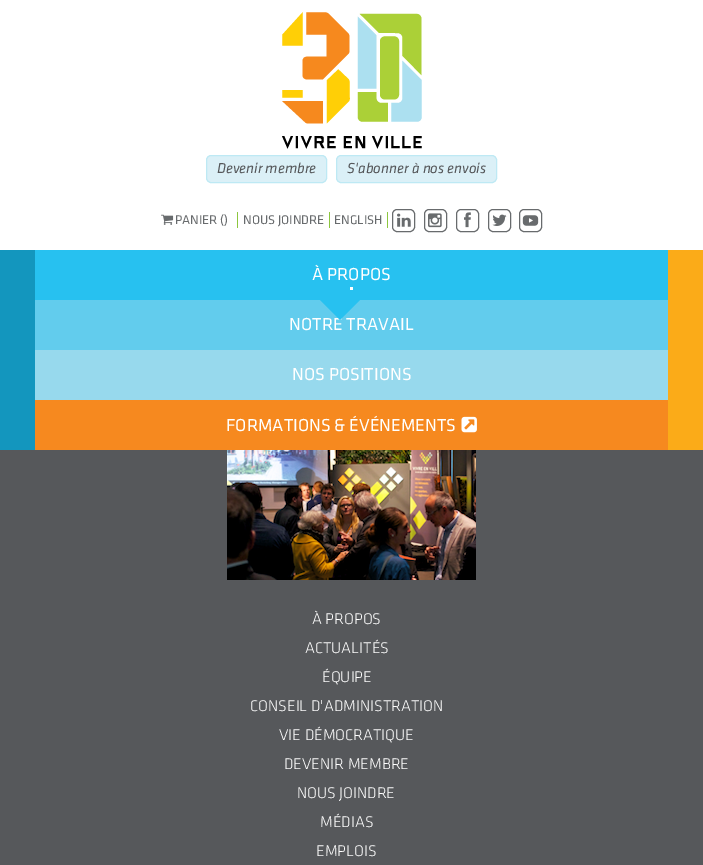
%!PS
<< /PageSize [703 865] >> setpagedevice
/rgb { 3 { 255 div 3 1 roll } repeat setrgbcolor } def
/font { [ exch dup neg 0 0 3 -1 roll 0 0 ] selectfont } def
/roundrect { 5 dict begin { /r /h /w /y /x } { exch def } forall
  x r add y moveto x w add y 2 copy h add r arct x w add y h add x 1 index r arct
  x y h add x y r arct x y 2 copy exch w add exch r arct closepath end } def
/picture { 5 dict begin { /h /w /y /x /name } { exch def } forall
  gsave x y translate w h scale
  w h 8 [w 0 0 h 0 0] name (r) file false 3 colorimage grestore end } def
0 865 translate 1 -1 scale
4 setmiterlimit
255 255 255 rgb
0 0 703 865 rectfill
(img/1.rgb) 282 12 140 137 picture
219 240 247 rgb
206.5 155.5 120 27 4.5 roundrect gsave fill grestore
190 233 244 rgb
stroke
219 240 247 rgb
336.5 155.5 160 27 4.5 roundrect gsave fill grestore
190 233 244 rgb
stroke
141 198 63 rgb
237 212 1 16 rectfill
(img/2.rgb) 161 214 13 11 picture
329 212 1 16 rectfill
387 212 1 16 rectfill
104 107 109 rgb
392.5 209.5 22 22 4.5 roundrect stroke
(img/3.rgb) 397 213 14 14 picture
424.5 209.5 22 22 4.5 roundrect stroke
(img/4.rgb) 428 213 14 15 picture
456.5 209.5 22 22 4.5 roundrect stroke
(img/5.rgb) 464 212 7 16 picture
488.5 209.5 22 22 4.5 roundrect stroke
(img/6.rgb) 492 214 15 12 picture
(img/7.rgb) 522 215 17 11 picture
519.5 209.5 22 22 4.5 roundrect stroke
gsave 0 250 moveto 703 250 lineto 703 450 lineto 0 450 lineto closepath clip newpath
<< /ShadingType 2 /ColorSpace /DeviceRGB /Coords [0 350 703 350] /Extend [true true] /Function << /FunctionType 3 /Domain [0 1] /Functions [<< /FunctionType 2 /Domain [0 1] /C0 [0.075 0.588 0.745] /C1 [0.075 0.588 0.745] /N 1 >> << /FunctionType 2 /Domain [0 1] /C0 [0.075 0.588 0.745] /C1 [0.984 0.671 0.094] /N 1 >> << /FunctionType 2 /Domain [0 1] /C0 [0.984 0.671 0.094] /C1 [0.984 0.671 0.094] /N 1 >>] /Bounds [0.5 0.53] /Encode [0 1 0 1 0 1] >> >> shfill grestore
[
  [35 250 633 50 39 193 240]
  [350 287 3 3 255 255 255]
  [0 450 703 415 86 88 91]
] { aload pop rgb rectfill } forall
(img/8.rgb) 227 450 249 130 picture
[
  [35 300 633 50 98 204 237]
  [35 350 633 50 151 217 237]
  [35 400 633 50 246 137 31]
] { aload pop rgb rectfill } forall
(img/9.rgb) 461 416 16 17 picture
/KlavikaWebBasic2-Regular 15 font
86 88 91 rgb
217 173 moveto (Devenir membre) show
347 173 moveto (S'abonner à nos envois) show
/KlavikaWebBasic-Regular 13 font
104 107 109 rgb
[
  [(PANIER \(\)) 175 224]
  [(NOUS JOINDRE) 243 224]
  [(ENGLISH) 334 224]
] { aload pop moveto show } forall
/KlavikaWebBasic-Regular 18 font
255 255 255 rgb
312 280 moveto (À PROPOS) show
/KlavikaWebBasic-Light 16 font
[
  [(À PROPOS) 312 624]
  [(ACTUALITÉS) 305 653]
  [(ÉQUIPE) 322 682]
  [(CONSEIL D'ADMINISTRATION) 250 711]
  [(VIE DÉMOCRATIQUE) 279 740]
  [(DEVENIR MEMBRE) 284 769]
  [(NOUS JOINDRE) 297 798]
  [(MÉDIAS) 320 827]
  [(EMPLOIS) 316 856]
] { aload pop moveto show } forall
/KlavikaWebBasic-Regular 18 font
289 330 moveto (NOTRE TRAVAIL) show
39 193 240 rgb
320 300 moveto 360 300 lineto 340 320 lineto closepath fill
255 255 255 rgb
292 380 moveto (NOS POSITIONS) show
226 431 moveto (FORMATIONS & ÉVÉNEMENTS) show
showpage
